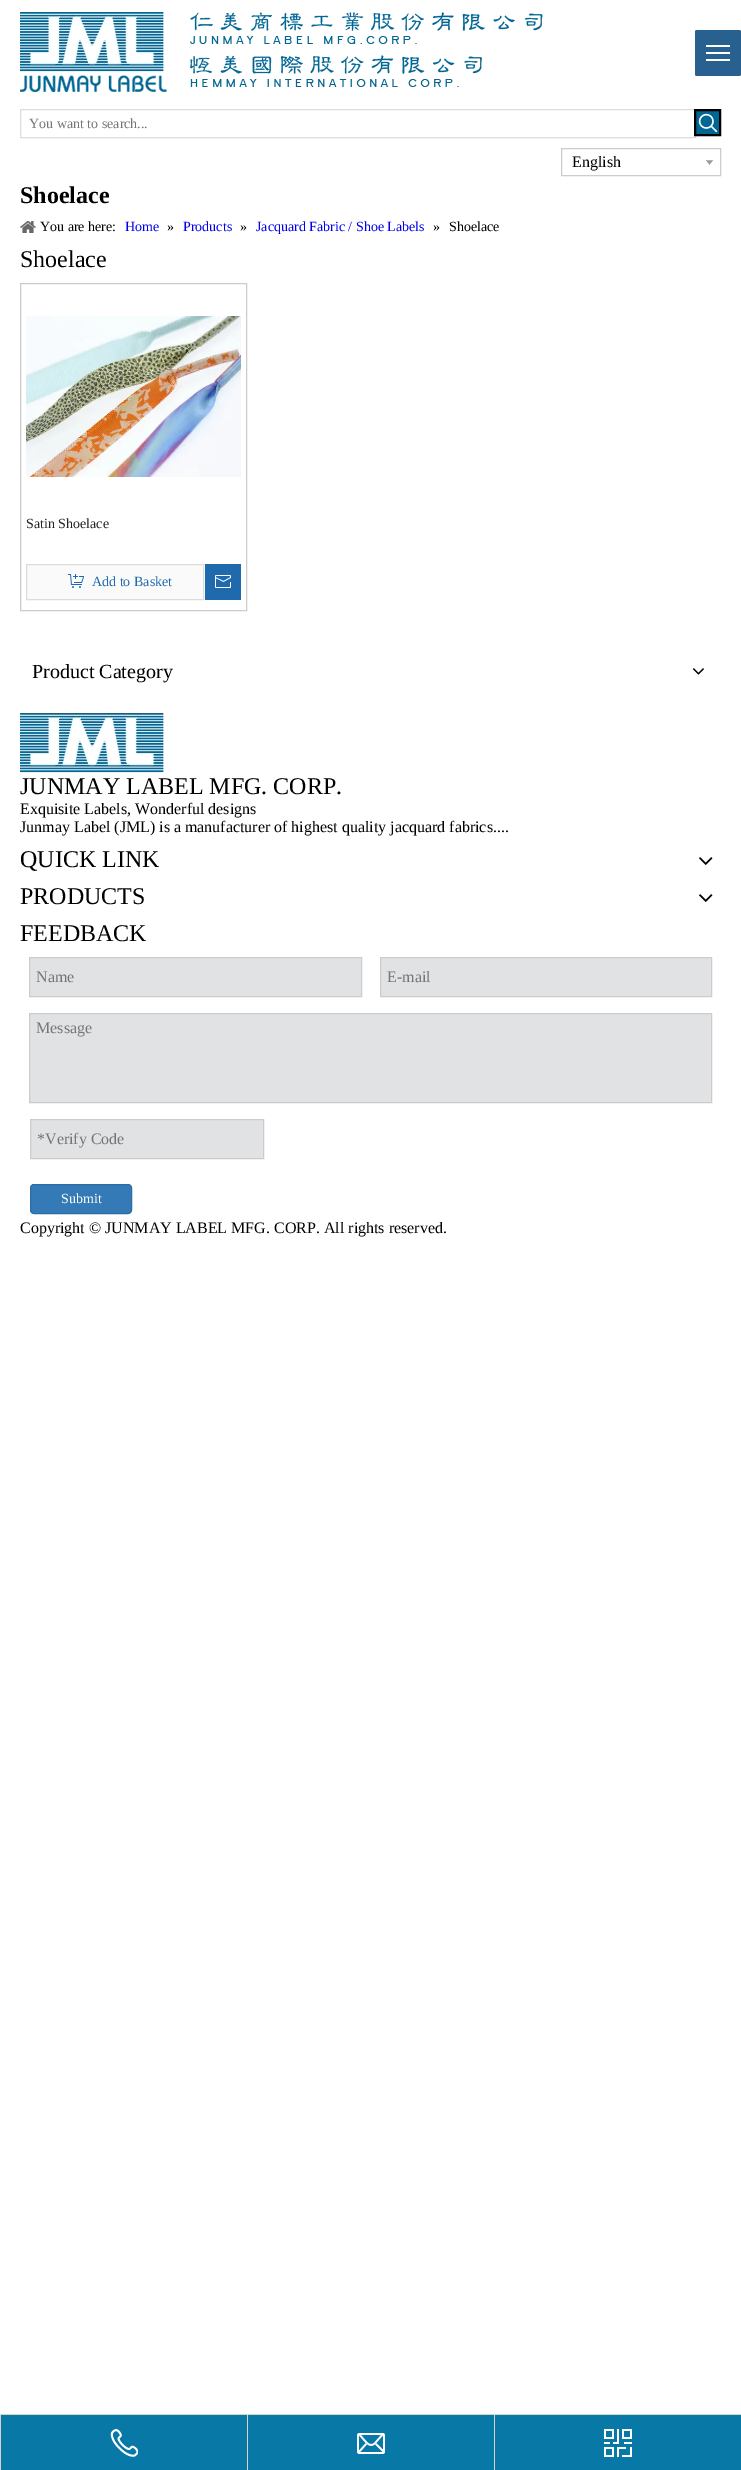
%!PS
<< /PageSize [741 2470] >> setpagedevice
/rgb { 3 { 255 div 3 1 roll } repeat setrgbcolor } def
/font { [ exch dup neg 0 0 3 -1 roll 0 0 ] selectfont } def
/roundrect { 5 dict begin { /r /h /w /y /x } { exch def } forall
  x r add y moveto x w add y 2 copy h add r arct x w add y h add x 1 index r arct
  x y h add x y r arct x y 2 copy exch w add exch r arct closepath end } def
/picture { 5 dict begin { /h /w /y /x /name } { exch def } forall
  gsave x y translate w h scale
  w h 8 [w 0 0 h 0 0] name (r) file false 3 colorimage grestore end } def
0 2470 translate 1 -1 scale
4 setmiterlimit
255 255 255 rgb
0 0 741 2470 rectfill
40 96 144 rgb
695 30 46 46 2 roundrect fill
[
  [706 45 24 2 255 255 255]
  [706 52 24 2 255 255 255]
  [706 59 24 2 255 255 255]
] { aload pop rgb rectfill } forall
(img/1.rgb) 20 12 523 80 picture
221 221 221 rgb
20.5 109.5 675 28 rectstroke
0 103 148 rgb
695 110 moveto 720 110 lineto 720 135 lineto 695 135 lineto closepath gsave fill grestore
0 0 0 rgb
2 setlinewidth
stroke
(img/2.rgb) 698 113 20 20 picture
204 204 204 rgb
1 setlinewidth
561.5 148.5 159 27 rectstroke
(img/3.rgb) 706 160 7 5 picture
(img/4.rgb) 20 221 16 12 picture
20.5 283.5 226 327 rectstroke
(img/5.rgb) 26 316 215 161 picture
250 250 250 rgb
26.5 564.5 moveto 203.5 564.5 lineto 203.5 599.5 lineto 26.5 599.5 lineto closepath gsave fill grestore
220 220 220 rgb
stroke
(img/6.rgb) 68 574 16 14 picture
31 105 173 rgb
205 564 36 36 rectfill
(img/7.rgb) 215 575 16 13 picture
(img/8.rgb) 692 668 12 7 picture
(img/9.rgb) 20 713 144 60 picture
[
  [0 2414 741 1 211 211 211]
  [0 2415 1 55 211 211 211]
  [1 2415 246 55 8 121 167]
] { aload pop rgb rectfill } forall
(img/10.rgb) 110 2429 28 28 picture
211 211 211 rgb
247 2415 1 55 rectfill
8 121 167 rgb
248 2415 246 55 rectfill
(img/11.rgb) 357 2433 28 21 picture
211 211 211 rgb
494 2415 1 55 rectfill
8 121 167 rgb
495 2415 246 55 rectfill
(img/12.rgb) 604 2429 28 28 picture
(img/13.rgb) 699 857 14 8 picture
(img/13.rgb) 699 894 14 8 picture
225 226 228 rgb
29.5 957.5 moveto 361.5 957.5 lineto 361.5 996.5 lineto 29.5 996.5 lineto closepath gsave fill grestore
204 204 204 rgb
stroke
225 226 228 rgb
380.5 957.5 moveto 711.5 957.5 lineto 711.5 996.5 lineto 380.5 996.5 lineto closepath gsave fill grestore
204 204 204 rgb
stroke
225 226 228 rgb
29.5 1013.5 moveto 711.5 1013.5 lineto 711.5 1102.5 lineto 29.5 1102.5 lineto closepath gsave fill grestore
204 204 204 rgb
stroke
225 226 228 rgb
30.5 1119.5 moveto 263.5 1119.5 lineto 263.5 1158.5 lineto 30.5 1158.5 lineto closepath gsave fill grestore
204 204 204 rgb
stroke
51 122 183 rgb
30.5 1184.5 101 29 3.5 roundrect gsave fill grestore
46 109 164 rgb
stroke
/LiberationSerif-Regular 14 font
117 117 117 rgb
29 128 moveto (You want to search...) show
/LiberationSerif-Regular 16 font
0 0 0 rgb
572 167 moveto (English) show
/LiberationSerif-Bold 24 font
20 203 moveto (Shoelace) show
/LiberationSerif-Regular 14 font
40 231 moveto (You are here:) show
0 0 238 rgb
125 231 moveto (Home) show
0 0 0 rgb
167 231 moveto (») show
0 0 238 rgb
183 231 moveto (Products) show
0 0 0 rgb
240 231 moveto (») show
0 0 238 rgb
256 231 moveto (Jacquard Fabric / Shoe Labels) show
0 0 0 rgb
433 231 moveto (») show
449 231 moveto (Shoelace) show
/LiberationSerif-Regular 24 font
20 267 moveto (Shoelace) show
/LiberationSerif-Regular 14 font
34 34 34 rgb
26 528 moveto (Satin Shoelace) show
31 105 173 rgb
92 586 moveto (Add to Basket) show
/LiberationSerif-Regular 20 font
0 0 0 rgb
32 678 moveto (Product Category) show
/LiberationSerif-Regular 24 font
20 794 moveto (JUNMAY LABEL MFG. CORP.) show
/LiberationSerif-Regular 16 font
20 814 moveto (Exquisite Labels, Wonderful designs) show
20 832 moveto (Junmay Label \(JML\) is a manufacturer of highest quality jacquard fabrics....) show
/LiberationSerif-Regular 24 font
[
  [(QUICK LINK) 20 867]
  [(PRODUCTS) 20 904]
  [(FEEDBACK) 20 941]
] { aload pop moveto show } forall
/LiberationSerif-Regular 16 font
117 117 117 rgb
[
  [(Name) 36 982]
  [(E-mail) 387 982]
  [(Message) 36 1033]
  [(*Verify Code) 37 1144]
] { aload pop moveto show } forall
/LiberationSerif-Regular 14 font
255 255 255 rgb
61 1203 moveto (Submit) show
/LiberationSerif-Regular 16 font
0 0 0 rgb
20 1233 moveto (Copyright © JUNMAY LABEL MFG. CORP. All rights reserved.) show
showpage
